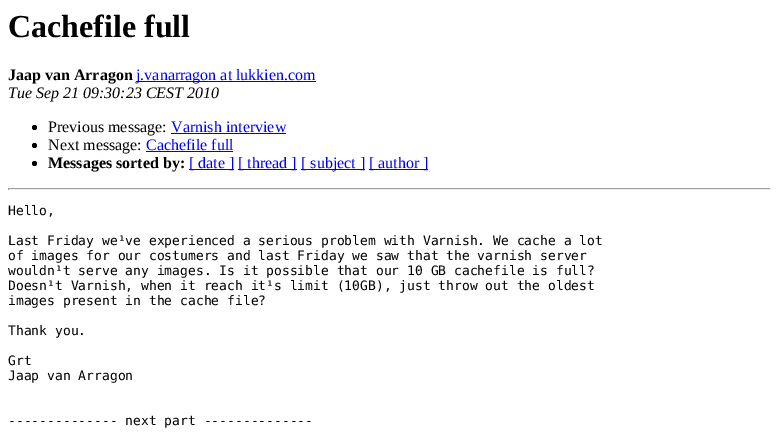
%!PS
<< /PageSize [779 436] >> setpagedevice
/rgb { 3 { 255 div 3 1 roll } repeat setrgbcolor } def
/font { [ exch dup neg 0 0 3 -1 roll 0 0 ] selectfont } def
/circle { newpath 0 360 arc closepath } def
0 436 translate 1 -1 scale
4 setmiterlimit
255 255 255 rgb
0 0 779 436 rectfill
0 0 238 rgb
136 81 180 1 rectfill
0 0 0 rgb
34.5 127.5 2.5 circle fill
0 0 238 rgb
171 133 115 1 rectfill
0 0 0 rgb
34.5 145.5 2.5 circle fill
0 0 238 rgb
146 151 87 1 rectfill
0 0 0 rgb
34.5 163.5 2.5 circle fill
[
  [189 169 45 1 0 0 238]
  [238 169 59 1 0 0 238]
  [301 169 64 1 0 0 238]
  [369 169 59 1 0 0 238]
  [8 188 763 1 159 159 159]
  [770 188 1 2 238 238 238]
  [8 189 763 1 238 238 238]
  [8 188 1 2 159 159 159]
] { aload pop rgb rectfill } forall
/LiberationSerif-Bold 32 font
0 0 0 rgb
8 37 moveto (Cachefile full) show
/LiberationSerif-Bold 16 font
8 80 moveto (Jaap van Arragon) show
/LiberationSerif-Regular 16 font
0 0 238 rgb
136 80 moveto (j.vanarragon at lukkien.com) show
/LiberationSerif-Italic 16 font
0 0 0 rgb
8 98 moveto (Tue Sep 21 09:30:23 CEST 2010) show
/LiberationSerif-Regular 16 font
48 132 moveto (Previous message:) show
0 0 238 rgb
171 132 moveto (Varnish interview) show
0 0 0 rgb
48 150 moveto (Next message:) show
0 0 238 rgb
146 150 moveto (Cachefile full) show
/LiberationSerif-Bold 16 font
0 0 0 rgb
48 168 moveto (Messages sorted by:) show
/LiberationSerif-Regular 16 font
0 0 238 rgb
[
  [([ date ]) 189 168]
  [([ thread ]) 238 168]
  [([ subject ]) 301 168]
  [([ author ]) 369 168]
] { aload pop moveto show } forall
/DejaVuSansMono-Regular 13 font
0 0 0 rgb
[
  [(Hello,) 8 215]
  [(Last Friday we¹ve experienced a serious problem with Varnish. We cache a lot) 8 245]
  [(of images for our costumers and last Friday we saw that the varnish server) 8 260]
  [(wouldn¹t serve any images. Is it possible that our 10 GB cachefile is full?) 8 275]
  [(Doesn¹t Varnish, when it reach it¹s limit \(10GB\), just throw out the oldest) 8 290]
  [(images present in the cache file?) 8 305]
  [(Thank you.) 8 335]
  [(Grt) 8 365]
  [(Jaap van Arragon) 8 380]
  [(-------------- next part --------------) 8 425]
] { aload pop moveto show } forall
showpage
